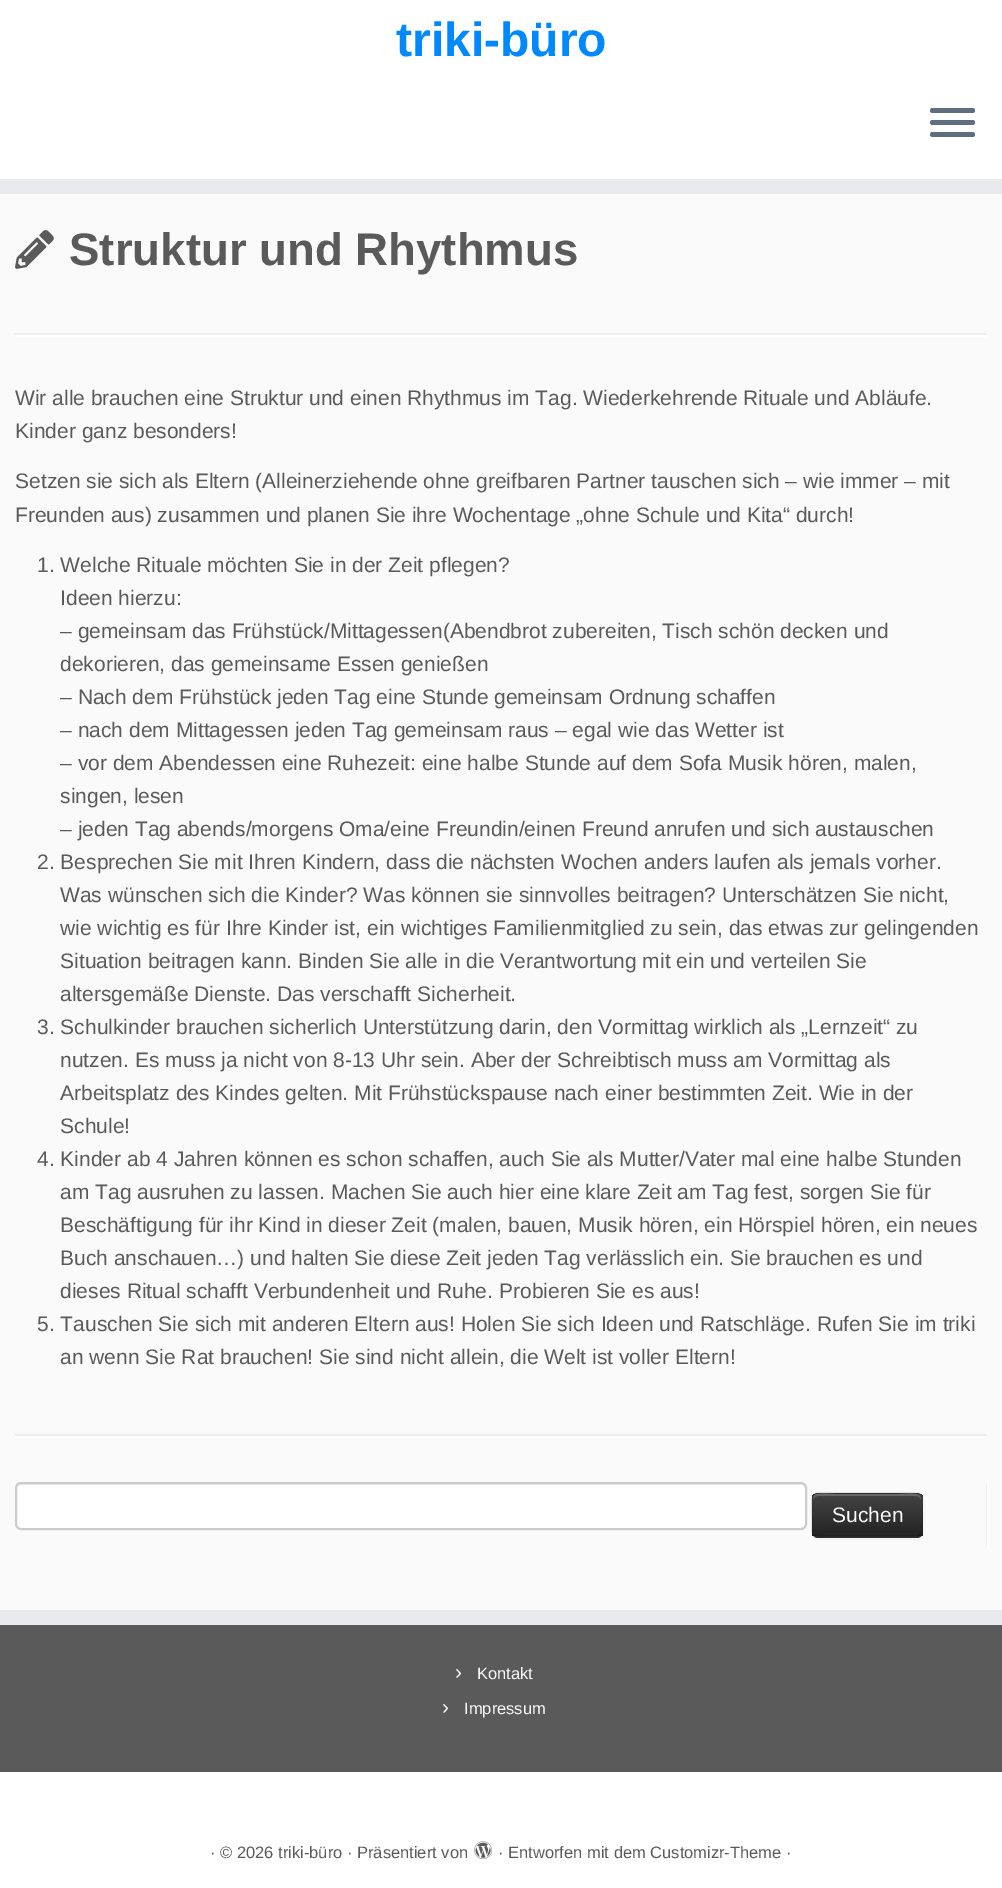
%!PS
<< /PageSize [1002 1888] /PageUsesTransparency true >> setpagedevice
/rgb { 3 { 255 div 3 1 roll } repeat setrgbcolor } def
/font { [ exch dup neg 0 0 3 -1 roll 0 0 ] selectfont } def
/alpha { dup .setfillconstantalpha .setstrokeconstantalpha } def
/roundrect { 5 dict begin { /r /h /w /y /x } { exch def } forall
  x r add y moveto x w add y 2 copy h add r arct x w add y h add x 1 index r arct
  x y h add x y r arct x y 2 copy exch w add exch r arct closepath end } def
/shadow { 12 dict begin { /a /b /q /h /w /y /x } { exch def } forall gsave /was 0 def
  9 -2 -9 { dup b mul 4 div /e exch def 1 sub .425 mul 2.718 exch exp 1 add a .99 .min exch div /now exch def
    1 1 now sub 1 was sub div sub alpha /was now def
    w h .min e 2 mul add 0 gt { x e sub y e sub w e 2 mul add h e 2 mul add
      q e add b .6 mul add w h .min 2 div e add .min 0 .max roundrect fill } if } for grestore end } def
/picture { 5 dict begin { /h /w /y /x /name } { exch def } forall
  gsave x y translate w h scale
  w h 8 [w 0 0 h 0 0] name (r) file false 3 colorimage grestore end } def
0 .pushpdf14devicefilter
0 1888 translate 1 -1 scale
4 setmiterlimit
250 250 250 rgb
0 0 1002 1888 rectfill
255 255 255 rgb
0 0 1002 179 rectfill
233 234 238 rgb
0 179 1002 15 rectfill
95 111 129 rgb
930 108 45 5 2.5 roundrect fill
930 120 45 5 2.5 roundrect fill
930 132 45 5 2.5 roundrect fill
(img/1.rgb) 15 230 39 39 picture
[
  [15 333 972 2 238 238 238]
  [15 335 972 2 255 255 255]
  [15 1434 972 2 238 238 238]
  [15 1436 972 2 255 255 255]
  [986 1482 1 65 238 238 238]
] { aload pop rgb rectfill } forall
255 255 255 rgb
15 1482 792 48 6 roundrect fill
236 236 236 rgb
21 1485 moveto 801 1485 lineto 803 1485 806 1487 806 1490 curveto 806 1489 lineto 806 1486 804 1484 801 1484 curveto 22 1484 lineto 20 1484 19 1485 18 1486 curveto closepath fill
204 204 204 rgb
2 setlinewidth
16 1483 790 46 5 roundrect stroke
0 0 0 rgb
812 1494 111 45 6 1.5 0.05 shadow
54 54 54 rgb
812 1493 111 45 6 roundrect fill
gsave
812 1493 111 45 6 roundrect clip newpath
gsave 812 1494 moveto 923 1494 lineto 923 1536 lineto 812 1536 lineto closepath clip newpath
<< /ShadingType 2 /ColorSpace /DeviceRGB /Coords [867 1494 867 1536] /Extend [true true] /Function << /FunctionType 2 /Domain [0 1] /C0 [0.267 0.267 0.267] /C1 [0.133 0.133 0.133] /N 1 >> >> shfill grestore
grestore
0.2 alpha
255 255 255 rgb
818 1496 moveto 916 1496 lineto 919 1496 921 1498 921 1500 curveto 921 1490 905 1494 900 1494 curveto 834 1494 lineto 829 1494 813 1490 813 1500 curveto 813 1498 815 1496 818 1496 curveto closepath fill
0.25 alpha
0 0 0 rgb
1.5 setlinewidth
920 1535 moveto 917 1536.5 lineto 817 1536.5 lineto 814 1535 lineto stroke
0.1 alpha
814 1535 moveto 811.5 1533 812 1529 812 1526 curveto 812 1515 lineto 812 1490.5 808.5 1493 834 1493 curveto 900 1493 lineto 925.5 1493 922 1490.5 922 1515 curveto 922 1526 lineto 922 1529 922.5 1533 920 1535 curveto stroke
1 alpha
[
  [987 1482 2 65 255 255 255]
  [0 1625 1002 147 90 90 90]
  [0 1610 1002 15 233 234 238]
  [0 1772 1002 116 255 255 255]
] { aload pop rgb rectfill } forall
(img/2.rgb) 474 1841 18 18 picture
/LiberationSans-Bold 48 font
0 136 255 rgb
396 56 moveto (triki-büro) show
/LiberationSans-Bold 45.6 font
90 90 90 rgb
69 265 moveto (Struktur und Rhythmus) show
/LiberationSans-Regular 21 font
[
  [(Wir alle brauchen eine Struktur und einen Rhythmus im Tag. Wiederkehrende Rituale und Abläufe.) 15 405]
  [(Kinder ganz besonders!) 15 438]
  [(Setzen sie sich als Eltern \(Alleinerziehende ohne greifbaren Partner tauschen sich – wie immer – mit) 15 488]
  [(Freunden aus\) zusammen und planen Sie ihre Wochentage „ohne Schule und Kita“ durch!) 15 522]
  [(1. Welche Rituale möchten Sie in der Zeit pflegen?) 37 572]
  [(Ideen hierzu:) 60 605]
  [(– gemeinsam das Frühstück/Mittagessen\(Abendbrot zubereiten, Tisch schön decken und) 60 638]
  [(dekorieren, das gemeinsame Essen genießen) 60 671]
  [(– Nach dem Frühstück jeden Tag eine Stunde gemeinsam Ordnung schaffen) 60 704]
  [(– nach dem Mittagessen jeden Tag gemeinsam raus – egal wie das Wetter ist) 60 737]
  [(– vor dem Abendessen eine Ruhezeit: eine halbe Stunde auf dem Sofa Musik hören, malen,) 60 770]
  [(singen, lesen) 60 803]
  [(– jeden Tag abends/morgens Oma/eine Freundin/einen Freund anrufen und sich austauschen) 60 836]
  [(2. Besprechen Sie mit Ihren Kindern, dass die nächsten Wochen anders laufen als jemals vorher.) 37 869]
  [(Was wünschen sich die Kinder? Was können sie sinnvolles beitragen? Unterschätzen Sie nicht,) 60 902]
  [(wie wichtig es für Ihre Kinder ist, ein wichtiges Familienmitglied zu sein, das etwas zur gelingenden) 60 935]
  [(Situation beitragen kann. Binden Sie alle in die Verantwortung mit ein und verteilen Sie) 60 968]
  [(altersgemäße Dienste. Das verschafft Sicherheit.) 60 1001]
  [(3. Schulkinder brauchen sicherlich Unterstützung darin, den Vormittag wirklich als „Lernzeit“ zu) 37 1034]
  [(nutzen. Es muss ja nicht von 8-13 Uhr sein. Aber der Schreibtisch muss am Vormittag als) 60 1067]
  [(Arbeitsplatz des Kindes gelten. Mit Frühstückspause nach einer bestimmten Zeit. Wie in der) 60 1100]
  [(Schule!) 60 1133]
  [(4. Kinder ab 4 Jahren können es schon schaffen, auch Sie als Mutter/Vater mal eine halbe Stunden) 37 1166]
  [(am Tag ausruhen zu lassen. Machen Sie auch hier eine klare Zeit am Tag fest, sorgen Sie für) 60 1199]
  [(Beschäftigung für ihr Kind in dieser Zeit \(malen, bauen, Musik hören, ein Hörspiel hören, ein neues) 60 1232]
  [(Buch anschauen…\) und halten Sie diese Zeit jeden Tag verlässlich ein. Sie brauchen es und) 60 1265]
  [(dieses Ritual schafft Verbundenheit und Ruhe. Probieren Sie es aus!) 60 1298]
  [(5. Tauschen Sie sich mit anderen Eltern aus! Holen Sie sich Ideen und Ratschläge. Rufen Sie im triki) 37 1331]
  [(an wenn Sie Rat brauchen! Sie sind nicht allein, die Welt ist voller Eltern!) 60 1364]
] { aload pop moveto show } forall
250 250 250 rgb
832 1522 moveto (Suchen) show
455 1679 moveto (›) show
/LiberationSans-Regular 16.5 font
477 1679 moveto (Kontakt) show
/LiberationSans-Regular 21 font
442 1714 moveto (›) show
/LiberationSans-Regular 16.5 font
464 1714 moveto (Impressum) show
90 90 90 rgb
210 1858 moveto (· © 2026 triki-büro · Präsentiert von) show
498 1858 moveto (· Entworfen mit dem Customizr-Theme ·) show
.poppdf14devicefilter showpage
